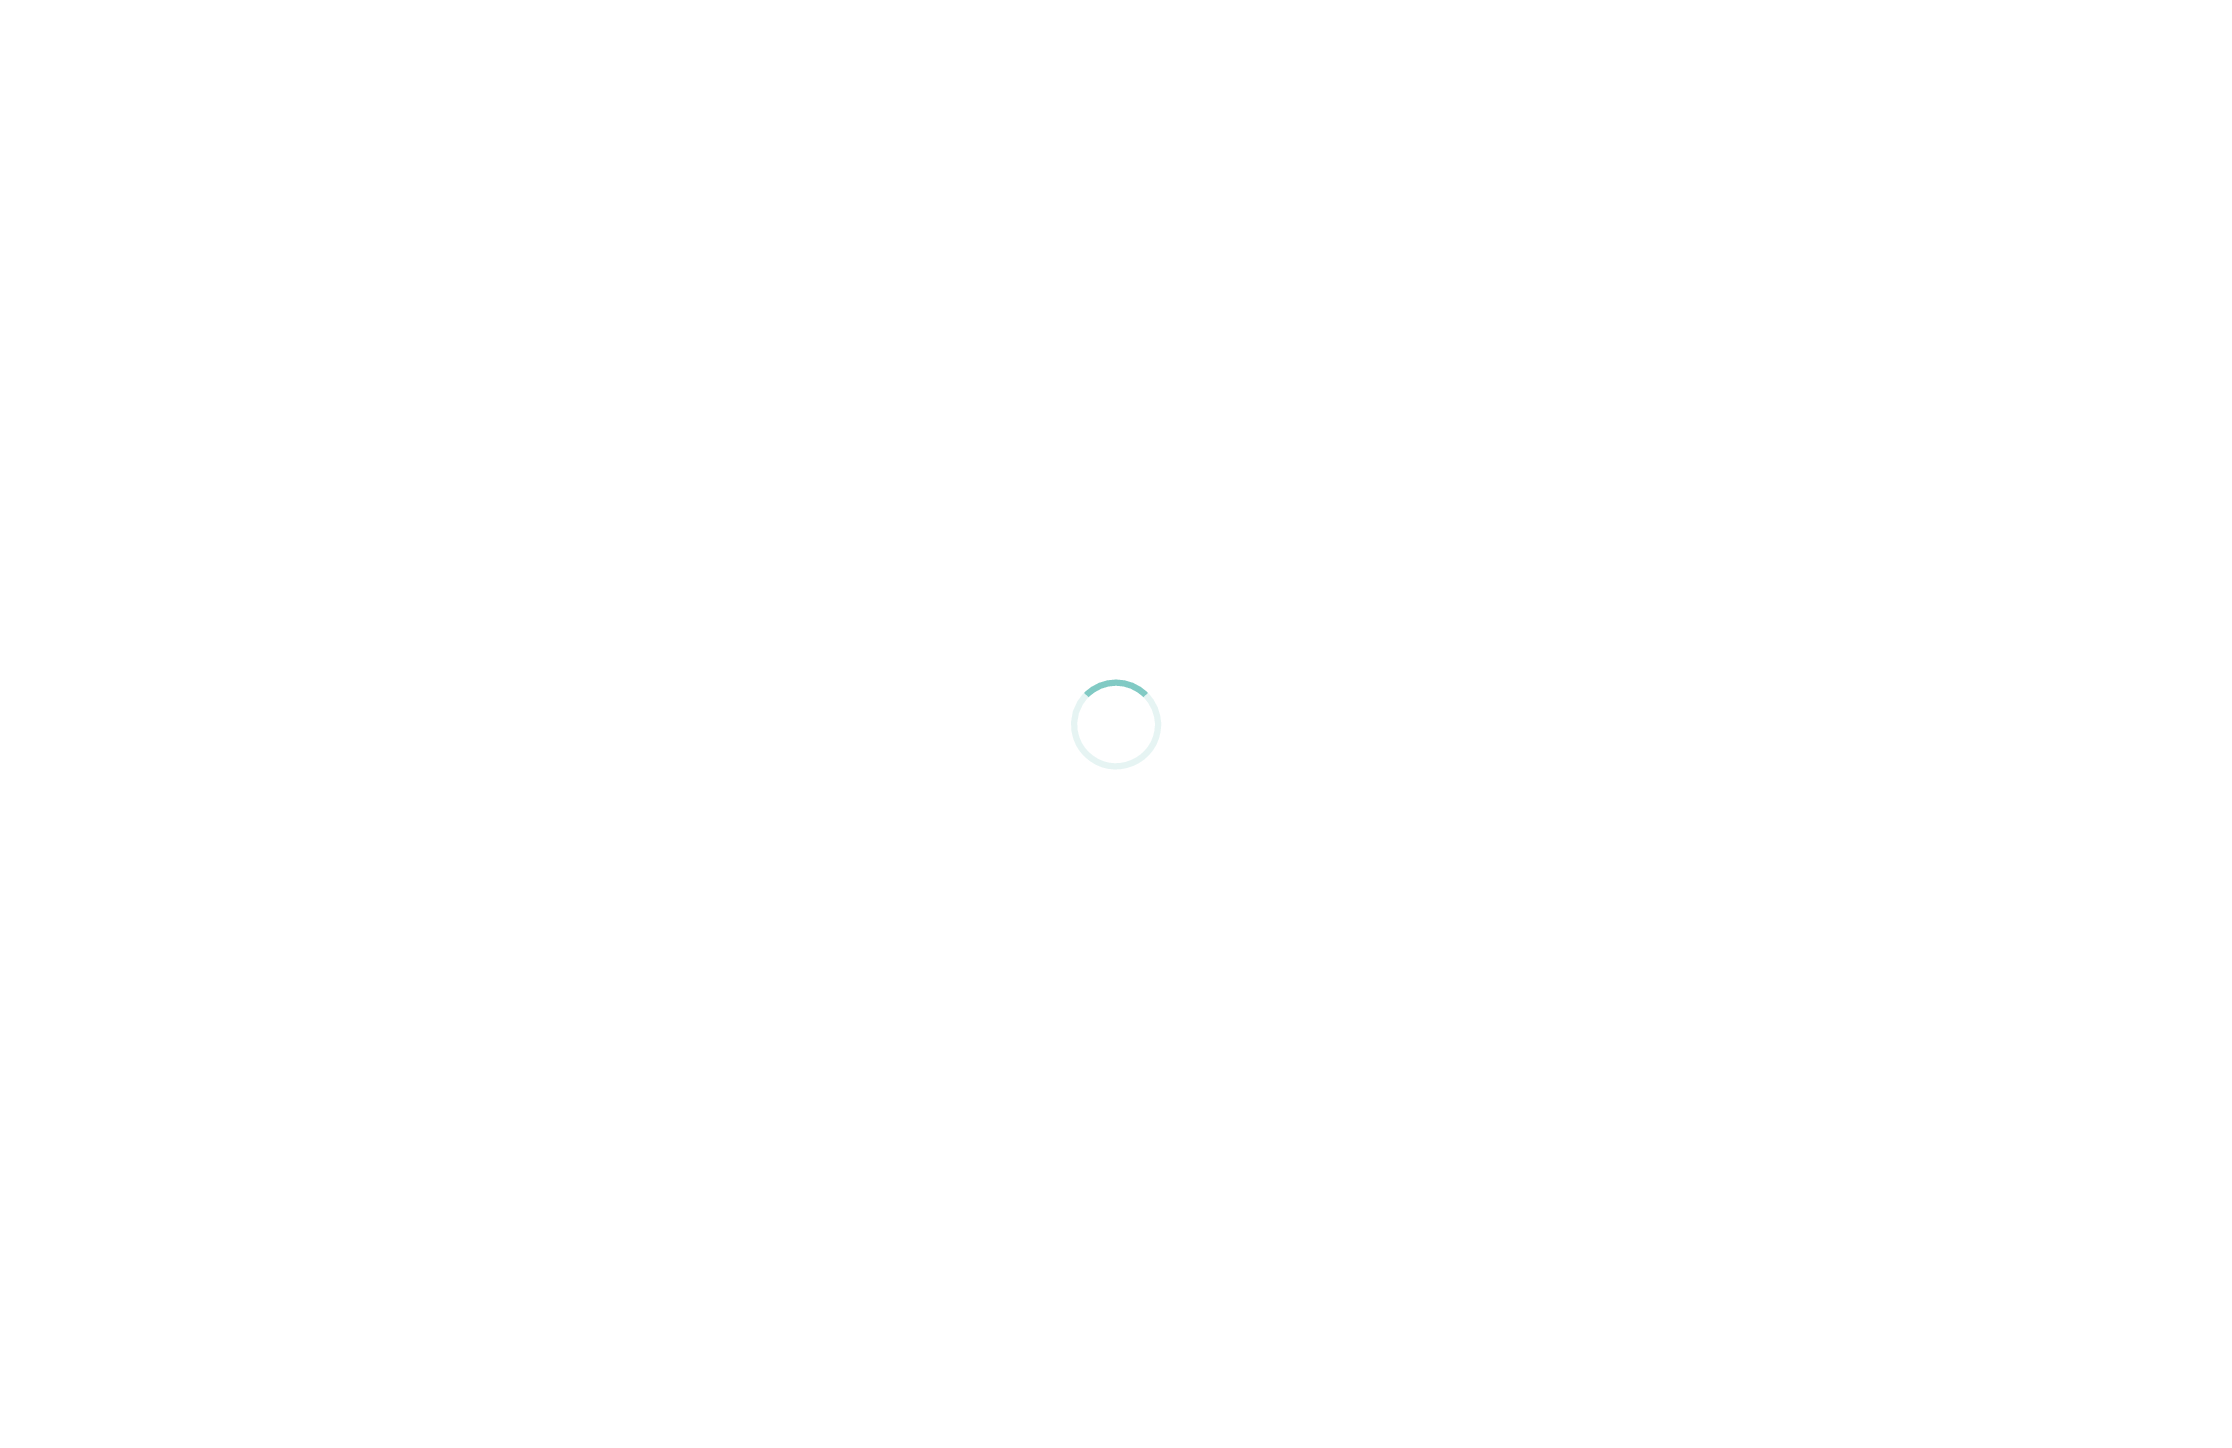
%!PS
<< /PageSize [2232 1448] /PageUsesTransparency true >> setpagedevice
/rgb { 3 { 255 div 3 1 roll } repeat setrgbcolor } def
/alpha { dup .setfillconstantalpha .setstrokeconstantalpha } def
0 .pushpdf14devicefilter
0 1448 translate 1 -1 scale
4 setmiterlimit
255 255 255 rgb
0 0 2232 1448 rectfill
129 202 196 rgb
6 setlinewidth
1086.5 695 moveto 1102.5 678.5 1129.5 678.5 1145.5 695 curveto stroke
0.2 alpha
1145.5 695 moveto 1153.5 702.5 1158 713.5 1158 724.5 curveto 1158 761.5 1112.5 780.5 1086.5 754 curveto 1080.5 748.5 1076.5 741 1075 732.5 curveto 1072 719 1076.5 704.5 1086.5 695 curveto stroke
.poppdf14devicefilter showpage
